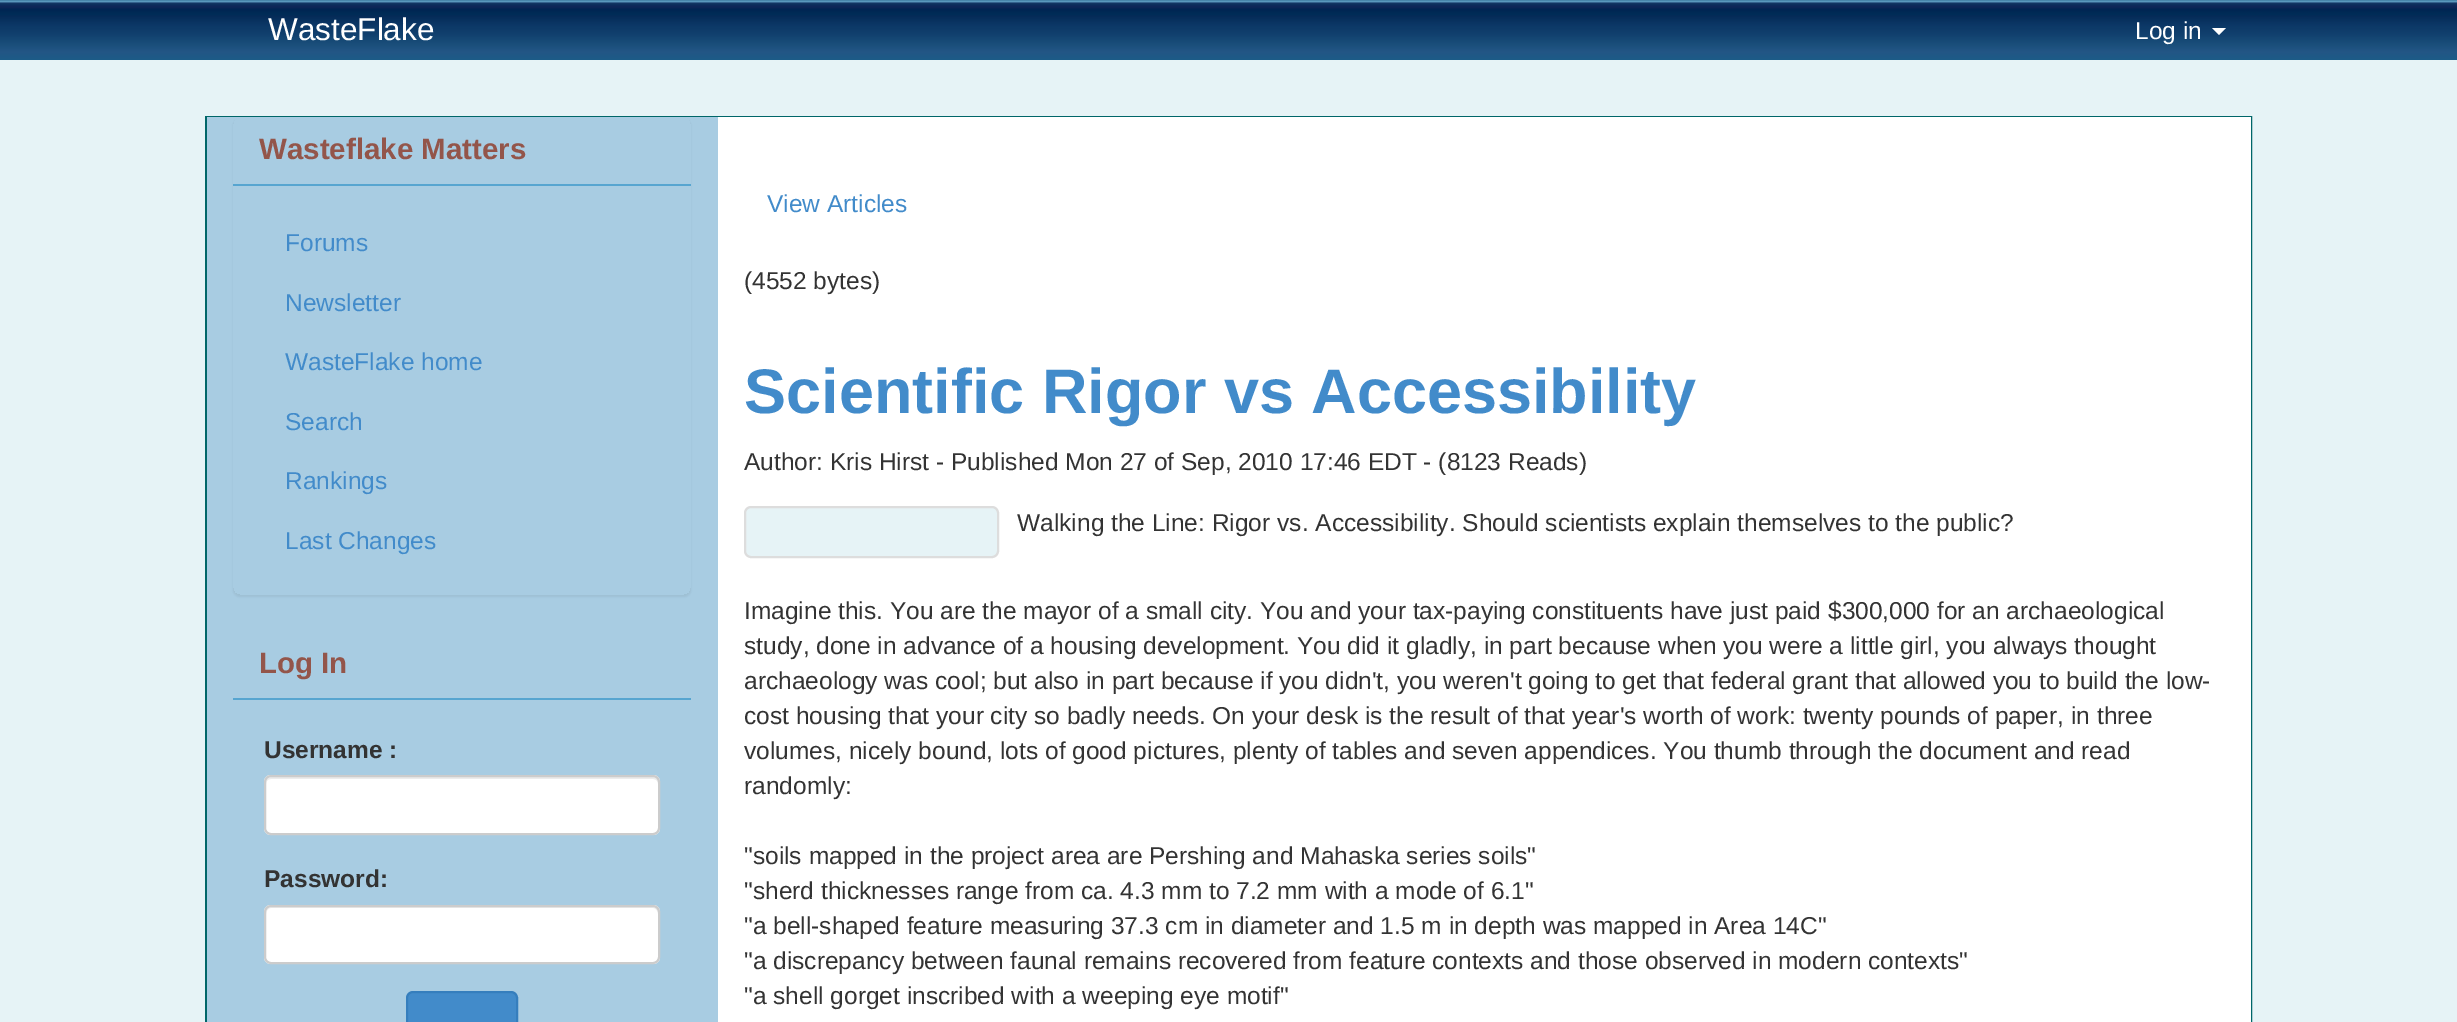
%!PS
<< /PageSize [2457 1022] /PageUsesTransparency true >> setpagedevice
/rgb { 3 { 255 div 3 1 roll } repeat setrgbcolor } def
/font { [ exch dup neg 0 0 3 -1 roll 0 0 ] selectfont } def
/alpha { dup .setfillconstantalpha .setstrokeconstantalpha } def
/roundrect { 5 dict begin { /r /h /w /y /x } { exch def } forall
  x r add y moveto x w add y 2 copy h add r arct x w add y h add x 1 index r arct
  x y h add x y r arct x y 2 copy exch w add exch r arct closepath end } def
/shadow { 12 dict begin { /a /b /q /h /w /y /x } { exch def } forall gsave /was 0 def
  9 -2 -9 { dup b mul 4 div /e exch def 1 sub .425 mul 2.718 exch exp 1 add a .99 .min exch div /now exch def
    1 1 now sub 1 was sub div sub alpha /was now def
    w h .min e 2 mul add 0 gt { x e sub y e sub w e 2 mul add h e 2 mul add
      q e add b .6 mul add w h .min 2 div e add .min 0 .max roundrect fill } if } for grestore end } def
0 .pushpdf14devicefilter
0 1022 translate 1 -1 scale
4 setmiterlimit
230 243 246 rgb
0 0 2457 1022 rectfill
gsave 0 0 moveto 2457 0 lineto 2457 60 lineto 0 60 lineto closepath clip newpath
<< /ShadingType 2 /ColorSpace /DeviceRGB /Coords [1229 0 1229 60] /Extend [true true] /Function << /FunctionType 3 /Domain [0 1] /Functions [<< /FunctionType 2 /Domain [0 1] /C0 [0.243 0.486 0.631] /C1 [0.376 0.62 0.765] /N 1 >> << /FunctionType 2 /Domain [0 1] /C0 [0.376 0.62 0.765] /C1 [0.086 0.22 0.4] /N 1 >> << /FunctionType 2 /Domain [0 1] /C0 [0.086 0.22 0.4] /C1 [0.043 0.176 0.357] /N 1 >> << /FunctionType 2 /Domain [0 1] /C0 [0.043 0.176 0.357] /C1 [0.059 0.149 0.345] /N 1 >> << /FunctionType 2 /Domain [0 1] /C0 [0.059 0.149 0.345] /C1 [0 0.145 0.322] /N 1 >> << /FunctionType 2 /Domain [0 1] /C0 [0 0.145 0.322] /C1 [0 0.176 0.341] /N 1 >> << /FunctionType 2 /Domain [0 1] /C0 [0 0.176 0.341] /C1 [0.02 0.169 0.345] /N 1 >> << /FunctionType 2 /Domain [0 1] /C0 [0.02 0.169 0.345] /C1 [0.047 0.22 0.404] /N 1 >> << /FunctionType 2 /Domain [0 1] /C0 [0.047 0.22 0.404] /C1 [0.067 0.251 0.431] /N 1 >> << /FunctionType 2 /Domain [0 1] /C0 [0.067 0.251 0.431] /C1 [0.106 0.314 0.486] /N 1 >> << /FunctionType 2 /Domain [0 1] /C0 [0.106 0.314 0.486] /C1 [0.137 0.337 0.522] /N 1 >> << /FunctionType 2 /Domain [0 1] /C0 [0.137 0.337 0.522] /C1 [0.11 0.357 0.529] /N 1 >>] /Bounds [0.03 0.05 0.08 0.11 0.16 0.24 0.27 0.43 0.57 0.76 0.86] /Encode [0 1 0 1 0 1 0 1 0 1 0 1 0 1 0 1 0 1 0 1 0 1 0 1] >> >> shfill grestore
255 255 255 rgb
2212 28 moveto 2226 28 lineto 2219 35 lineto closepath fill
0 102 105 rgb
2 setlinewidth
206 117 2045 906 rectstroke
168 204 226 rgb
207 117 511 905 rectfill
gsave
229 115 moveto 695 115 lineto 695 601 lineto 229 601 lineto closepath 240 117 moveto 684 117 lineto 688 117 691 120 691 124 curveto 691 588 lineto 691 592 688 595 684 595 curveto 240 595 lineto 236 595 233 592 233 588 curveto 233 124 lineto 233 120 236 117 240 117 curveto closepath eoclip newpath
0 0 0 rgb
233 119 458 478 7 1 0.05 shadow
grestore
87 165 208 rgb
233 184 458 2 rectfill
233 698 458 2 rectfill
255 255 255 rgb
264 775 396 60 7 roundrect fill
236 236 236 rgb
271 779 moveto 653 779 lineto 656 779 658 781 658 784 curveto 658 782 lineto 658 779 656 777 653 777 curveto 271 777 lineto 268 777 266 779 266 782 curveto 266 784 lineto 266 781 268 779 271 779 curveto closepath fill
204 204 204 rgb
265 776 394 58 6 roundrect stroke
255 255 255 rgb
264 905 396 59 7 roundrect fill
236 236 236 rgb
271 908 moveto 653 908 lineto 656 908 658 911 658 914 curveto 658 912 lineto 658 909 656 907 653 907 curveto 271 907 lineto 268 907 266 909 266 912 curveto 266 914 lineto 266 911 268 908 271 908 curveto closepath fill
204 204 204 rgb
265 906 394 57 6 roundrect stroke
66 139 202 rgb
407 992 110 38 6 roundrect gsave fill grestore
53 126 189 rgb
stroke
255 255 255 rgb
718 117 1533 905 rectfill
230 243 246 rgb
745 507 253 50 6 roundrect gsave fill grestore
221 221 221 rgb
stroke
/LiberationSans-Regular 31.5 font
255 255 255 rgb
268 40 moveto (WasteFlake) show
/LiberationSans-Regular 24.5 font
2135 39 moveto (Log in) show
/LiberationSans-Bold 29.5 font
147 85 74 rgb
259 159 moveto (Wasteflake Matters) show
/LiberationSans-Regular 24.5 font
66 139 202 rgb
[
  [(Forums) 285 251]
  [(Newsletter) 285 311]
  [(WasteFlake home) 285 370]
  [(Search) 285 430]
  [(Rankings) 285 489]
  [(Last Changes) 285 549]
] { aload pop moveto show } forall
/LiberationSans-Bold 29.5 font
147 85 74 rgb
259 673 moveto (Log In) show
/LiberationSans-Bold 24.5 font
51 51 51 rgb
264 758 moveto (Username :) show
264 887 moveto (Password:) show
/LiberationSans-Regular 24.5 font
66 139 202 rgb
767 212 moveto (View Articles) show
51 51 51 rgb
744 289 moveto (\(4552 bytes\)) show
/LiberationSans-Bold 63 font
66 139 202 rgb
744 413 moveto (Scientific Rigor vs Accessibility) show
/LiberationSans-Regular 24.5 font
51 51 51 rgb
[
  [(Author: Kris Hirst - Published Mon 27 of Sep, 2010 17:46 EDT - \(8123 Reads\)) 744 470]
  [(Walking the Line: Rigor vs. Accessibility. Should scientists explain themselves to the public?) 1017 531]
  [(Imagine this. You are the mayor of a small city. You and your tax-paying constituents have just paid $300,000 for an archaeological) 744 619]
  [(study, done in advance of a housing development. You did it gladly, in part because when you were a little girl, you always thought) 744 654]
  [(archaeology was cool; but also in part because if you didn't, you weren't going to get that federal grant that allowed you to build the low-) 744 689]
  [(cost housing that your city so badly needs. On your desk is the result of that year's worth of work: twenty pounds of paper, in three) 744 724]
  [(volumes, nicely bound, lots of good pictures, plenty of tables and seven appendices. You thumb through the document and read) 744 759]
  [(randomly:) 744 794]
  [("soils mapped in the project area are Pershing and Mahaska series soils") 744 864]
  [("sherd thicknesses range from ca. 4.3 mm to 7.2 mm with a mode of 6.1") 744 899]
  [("a bell-shaped feature measuring 37.3 cm in diameter and 1.5 m in depth was mapped in Area 14C") 744 934]
  [("a discrepancy between faunal remains recovered from feature contexts and those observed in modern contexts") 744 969]
  [("a shell gorget inscribed with a weeping eye motif") 744 1004]
] { aload pop moveto show } forall
.poppdf14devicefilter showpage
